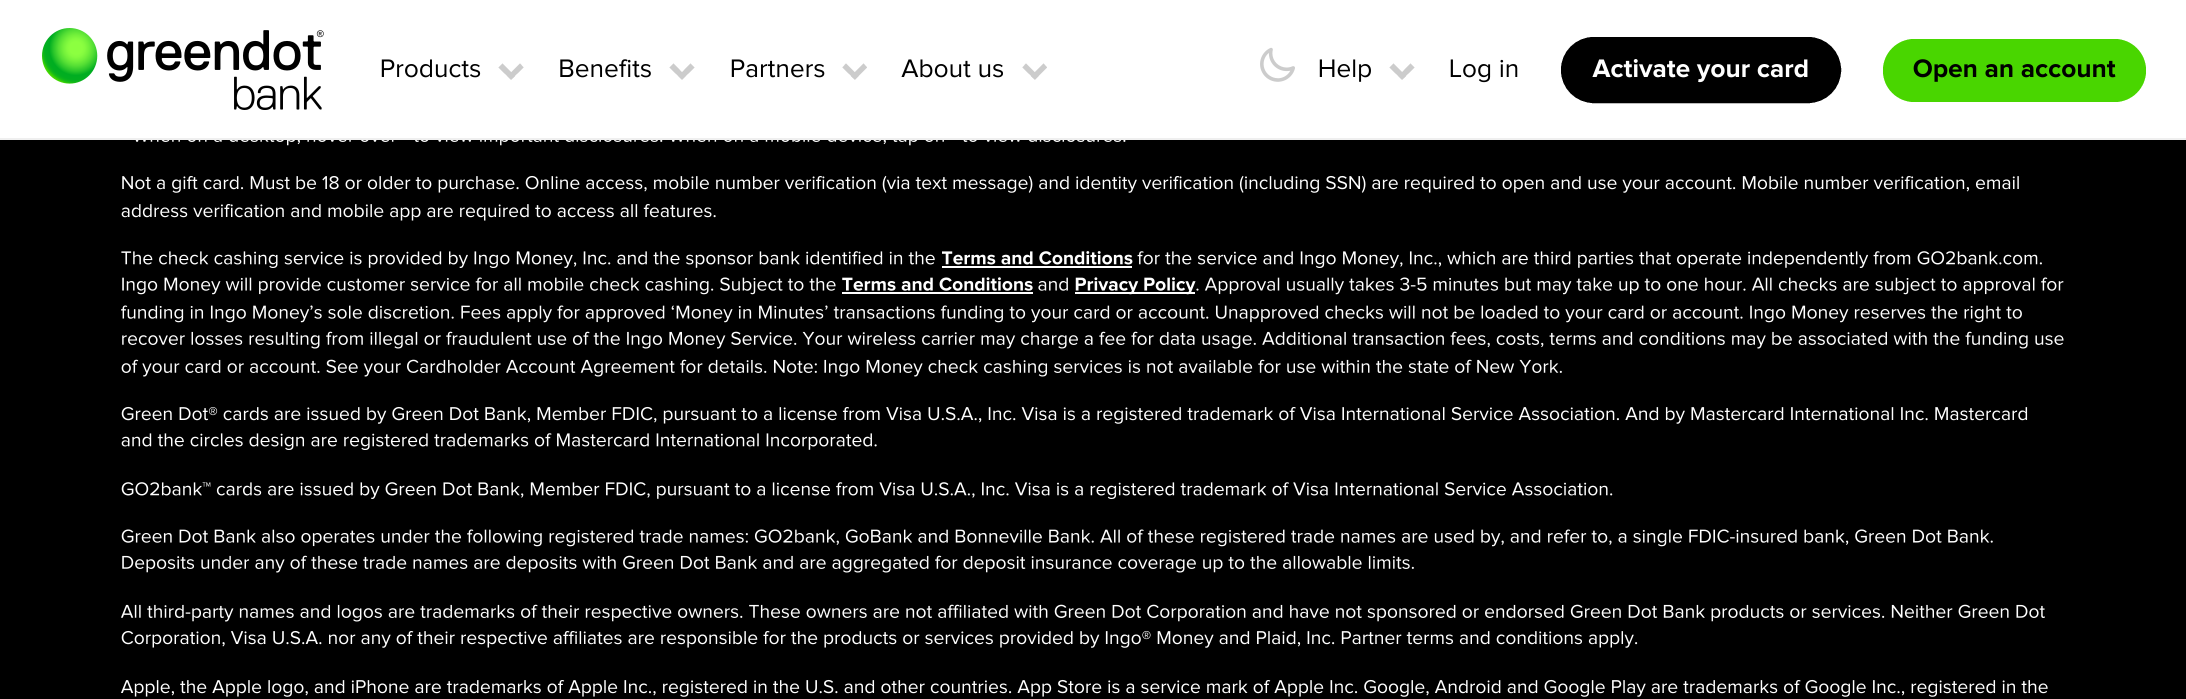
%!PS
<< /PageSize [2186 699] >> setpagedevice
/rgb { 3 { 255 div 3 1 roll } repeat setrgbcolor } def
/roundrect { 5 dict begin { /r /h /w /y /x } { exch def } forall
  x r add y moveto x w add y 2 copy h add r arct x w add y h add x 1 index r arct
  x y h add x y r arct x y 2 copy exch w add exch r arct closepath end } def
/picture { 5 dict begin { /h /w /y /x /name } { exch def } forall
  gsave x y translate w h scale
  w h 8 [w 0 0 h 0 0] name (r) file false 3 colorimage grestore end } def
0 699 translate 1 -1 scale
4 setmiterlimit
0 0 0 rgb
0 0 2186 699 rectfill
255 255 255 rgb
0 0 2186 138 rectfill
239 239 239 rgb
0 138 2186 2 rectfill
(img/1.rgb) 42 28 282 82 picture
(img/2.rgb) 381 59 100 19 picture
204 204 204 rgb
511 79.5 moveto 498.5 67.5 lineto 502.5 63.5 lineto 515 76 lineto closepath fill
511 79.5 moveto 507.5 76 lineto 520 63.5 lineto 523.5 67.5 lineto closepath fill
(img/3.rgb) 560 59 91 19 picture
682 79.5 moveto 669.5 67.5 lineto 673.5 63.5 lineto 685.5 76 lineto closepath fill
682 79.5 moveto 678.5 76 lineto 690.5 63.5 lineto 694.5 67.5 lineto closepath fill
(img/4.rgb) 731 59 94 19 picture
855 79.5 moveto 842.5 67.5 lineto 846 63.5 lineto 858.5 76 lineto closepath fill
855 79.5 moveto 851 76 lineto 863.5 63.5 lineto 867 67.5 lineto closepath fill
(img/5.rgb) 901 59 102 19 picture
1035 79.5 moveto 1022.5 67.5 lineto 1026 63.5 lineto 1038.5 76 lineto closepath fill
1035 79.5 moveto 1031 76 lineto 1043.5 63.5 lineto 1047 67.5 lineto closepath fill
(img/6.rgb) 1260 47 35 35 picture
(img/7.rgb) 1319 59 52 23 picture
1402 79.5 moveto 1389.5 67.5 lineto 1393.5 63.5 lineto 1406 76 lineto closepath fill
1402 79.5 moveto 1398.5 76 lineto 1410.5 63.5 lineto 1414.5 67.5 lineto closepath fill
(img/8.rgb) 1450 59 68 24 picture
0 0 0 rgb
1563 39 276 62 31 roundrect gsave fill grestore
4 setlinewidth
stroke
(img/9.rgb) 1592 59 216 24 picture
73 214 0 rgb
1883 39 263 63 31.5 roundrect fill
(img/10.rgb) 1913 59 203 23 picture
(img/11.rgb) 135 140 991 6 picture
(img/12.rgb) 122 175 1897 18 picture
(img/13.rgb) 121 204 595 17 picture
(img/14.rgb) 121 251 814 17 picture
(img/15.rgb) 942 251 191 14 picture
(img/16.rgb) 1137 251 905 17 picture
255 255 255 rgb
942 266 190 2 rectfill
(img/17.rgb) 122 277 714 18 picture
(img/18.rgb) 842 277 191 14 picture
(img/19.rgb) 1038 277 30 14 picture
1075 292 120 2 rectfill
(img/20.rgb) 1075 277 121 18 picture
(img/21.rgb) 1196 277 868 18 picture
842 292 191 2 rectfill
(img/22.rgb) 121 305 1901 18 picture
(img/23.rgb) 122 331 1942 18 picture
(img/24.rgb) 121 359 1441 18 picture
(img/25.rgb) 121 406 1907 18 picture
(img/26.rgb) 121 433 756 17 picture
(img/27.rgb) 121 482 1492 17 picture
(img/28.rgb) 121 529 1872 18 picture
(img/29.rgb) 122 555 1292 18 picture
(img/30.rgb) 121 604 1924 18 picture
(img/31.rgb) 121 630 1517 18 picture
(img/32.rgb) 121 679 1927 18 picture
showpage
